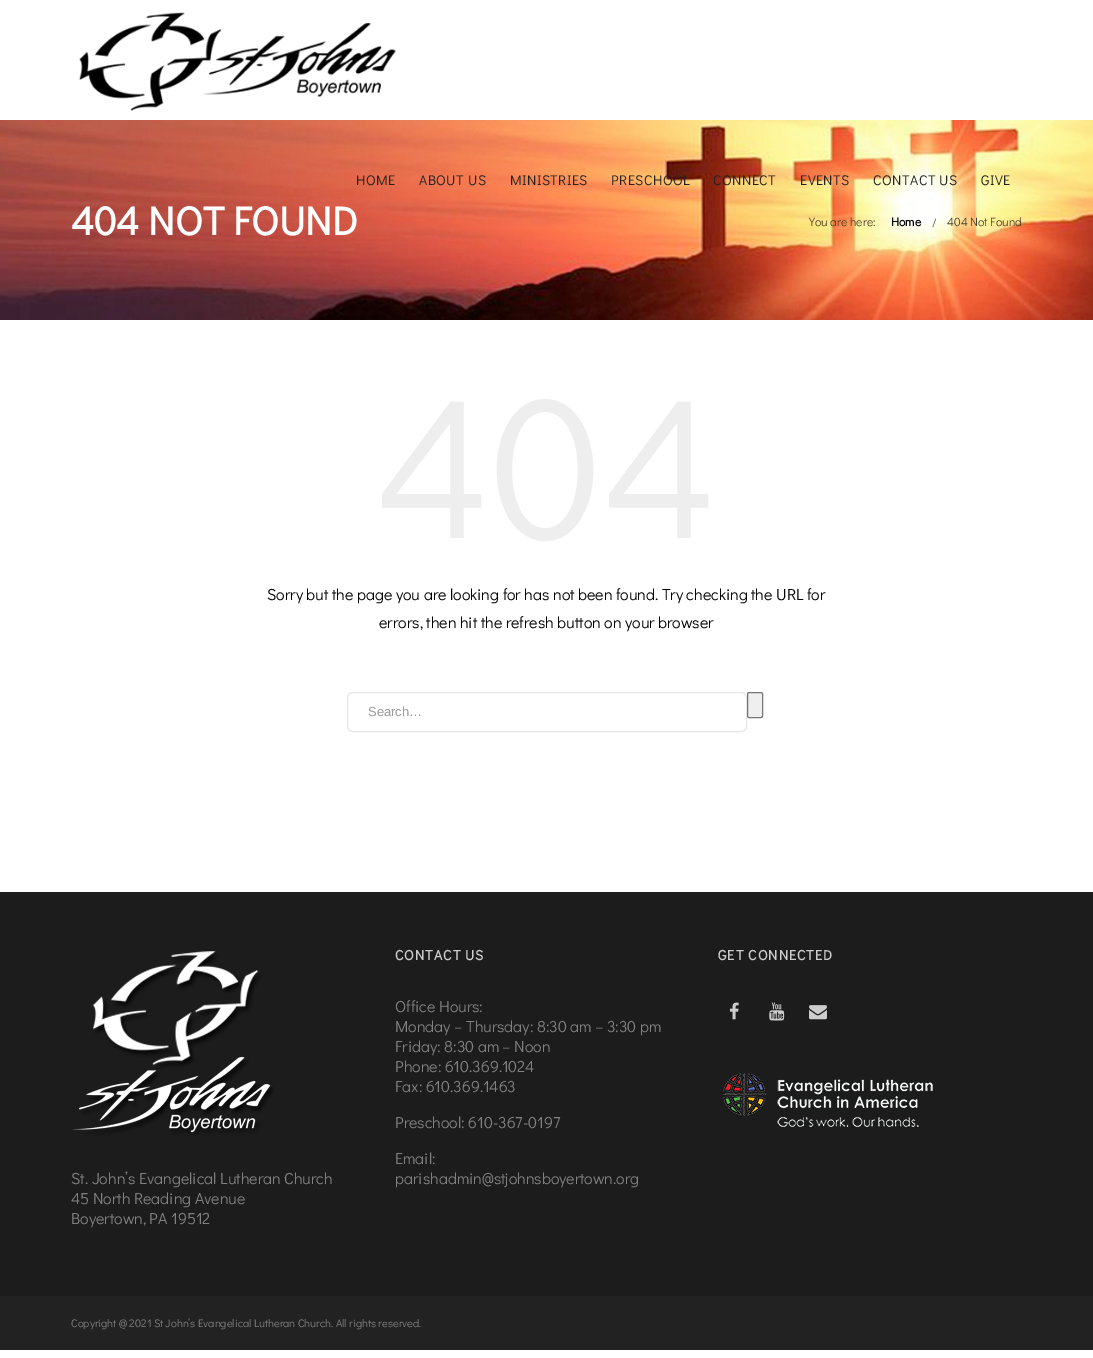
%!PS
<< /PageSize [1093 1358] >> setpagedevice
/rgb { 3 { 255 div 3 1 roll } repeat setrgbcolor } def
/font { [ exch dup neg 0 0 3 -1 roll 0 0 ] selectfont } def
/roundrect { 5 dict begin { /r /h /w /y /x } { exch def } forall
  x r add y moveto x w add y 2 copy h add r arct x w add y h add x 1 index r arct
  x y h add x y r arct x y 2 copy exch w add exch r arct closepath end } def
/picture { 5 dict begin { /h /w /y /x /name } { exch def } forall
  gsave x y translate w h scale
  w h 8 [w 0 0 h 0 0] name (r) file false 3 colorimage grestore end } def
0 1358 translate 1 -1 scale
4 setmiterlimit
255 255 255 rgb
0 0 1093 1358 rectfill
(img/1.rgb) 79 12 317 99 picture
(img/2.rgb) 0 120 1093 200 picture
231 231 231 rgb
347.5 692.5 399 39 5.5 roundrect stroke
239 239 239 rgb
747.5 692.5 15 25 1.5 roundrect gsave fill grestore
118 118 118 rgb
stroke
28 28 28 rgb
0 892 1093 404 rectfill
(img/3.rgb) 729 1002 10 18 picture
(img/4.rgb) 769 1002 16 19 picture
(img/5.rgb) 809 1005 18 15 picture
(img/6.rgb) 723 1073 210 54 picture
(img/7.rgb) 72 951 202 185 picture
34 34 34 rgb
0 1296 1093 54 rectfill
/DidactGothic-Regular 14 font
356 185 moveto 0.5 0 (HOME) ashow
419 185 moveto 0.5 0 (ABOUT US) ashow
510 185 moveto 0.5 0 (MINISTRIES) ashow
611 185 moveto 0.5 0 (PRESCHOOL) ashow
713 185 moveto 0.5 0 (CONNECT) ashow
800 185 moveto 0.5 0 (EVENTS) ashow
873 185 moveto 0.5 0 (CONTACT US) ashow
981 185 moveto 0.5 0 (GIVE) ashow
/DidactGothic-Bold 40 font
255 255 255 rgb
71 235 moveto (404 NOT FOUND) show
/DidactGothic-Regular 12 font
75 62 38 rgb
809 226 moveto (You are here:) show
/DidactGothic-Bold 12 font
0 0 0 rgb
891 226 moveto (Home) show
/DidactGothic-Regular 12 font
76 76 73 rgb
932 227 moveto (/) show
75 67 45 rgb
947 226 moveto (404 Not Found) show
/DidactGothic-Regular 200 font
238 238 238 rgb
376 538 moveto (404) show
/DidactGothic-Regular 16 font
0 0 0 rgb
267 600 moveto (Sorry but the page you are looking for has not been found. Try checking the URL for) show
379 628 moveto (errors, then hit the refresh button on your browser) show
/LiberationSans-Regular 13 font
153 153 153 rgb
368 716 moveto (Search…) show
/DidactGothic-Bold 14 font
205 205 205 rgb
395 960 moveto 1 0 (CONTACT US) ashow
/DidactGothic-Regular 16 font
129 129 129 rgb
[
  [(Office Hours:) 395 1012]
  [(Monday – Thursday: 8:30 am – 3:30 pm) 395 1032]
  [(Friday: 8:30 am – Noon) 395 1052]
  [(Phone: 610.369.1024) 395 1072]
  [(Fax: 610.369.1463) 395 1092]
  [(Preschool: 610-367-0197) 395 1128]
  [(Email:) 395 1164]
  [(parishadmin@stjohnsboyertown.org) 395 1184]
] { aload pop moveto show } forall
/DidactGothic-Bold 14 font
205 205 205 rgb
718 960 moveto 1 0 (GET CONNECTED) ashow
/DidactGothic-Regular 16 font
129 129 129 rgb
[
  [(St. John’s Evangelical Lutheran Church) 71 1184]
  [(45 North Reading Avenue) 71 1204]
  [(Boyertown, PA 19512) 71 1224]
] { aload pop moveto show } forall
/DidactGothic-Regular 11 font
71 1327 moveto (Copyright @ 2021 St John’s Evangelical Lutheran Church. All rights reserved.) show
showpage
